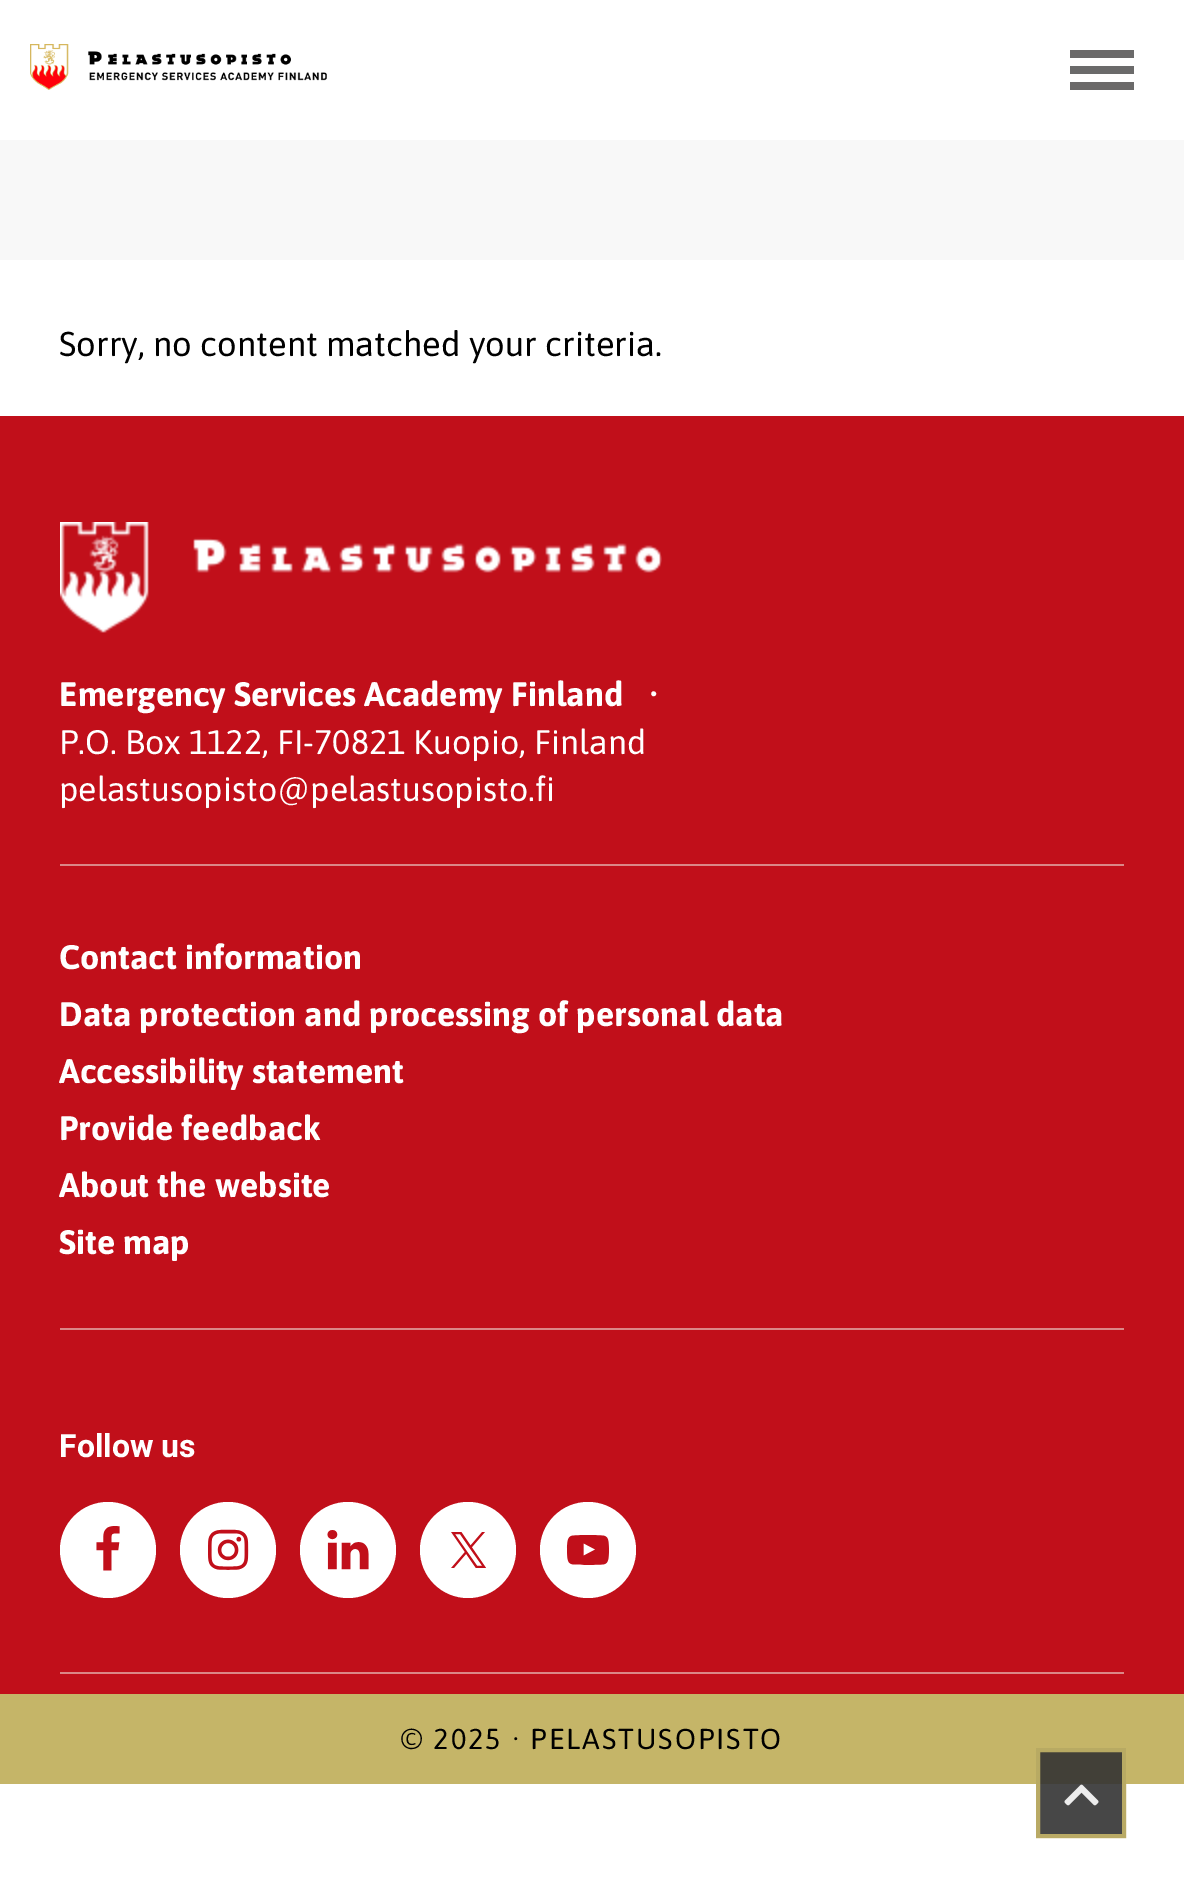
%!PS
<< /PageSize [1184 1895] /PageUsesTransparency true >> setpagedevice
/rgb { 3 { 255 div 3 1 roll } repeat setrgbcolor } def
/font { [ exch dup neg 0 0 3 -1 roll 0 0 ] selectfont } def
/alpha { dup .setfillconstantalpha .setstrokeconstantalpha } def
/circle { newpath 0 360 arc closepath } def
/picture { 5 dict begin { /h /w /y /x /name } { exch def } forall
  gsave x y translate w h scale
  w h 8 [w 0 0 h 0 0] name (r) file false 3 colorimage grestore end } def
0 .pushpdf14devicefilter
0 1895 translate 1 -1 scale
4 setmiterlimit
255 255 255 rgb
0 0 1184 1895 rectfill
71 71 71 rgb
1036 1784 90 54 rectfill
(img/1.rgb) 30 44 297 46 picture
[
  [1070 50 64 8 107 106 106]
  [1070 66 64 8 107 106 106]
  [1070 82 64 8 107 106 106]
  [0 140 1184 120 248 248 248]
  [0 416 1184 1278 193 15 26]
  [60 864 1064 2 219 135 135]
] { aload pop rgb rectfill } forall
(img/2.rgb) 60 522 602 111 picture
60 1328 1064 2 rectfill
60 1672 1064 2 rectfill
255 255 255 rgb
108 1550 48 circle fill
(img/3.rgb) 96 1526 24 45 picture
228 1550 48 circle fill
(img/4.rgb) 208 1529 41 41 picture
348 1550 48 circle fill
(img/5.rgb) 327 1530 42 40 picture
468 1550 48 circle fill
(img/6.rgb) 451 1532 35 36 picture
588 1550 48 circle fill
(img/7.rgb) 566 1535 43 30 picture
197 181 104 rgb
0 1694 1184 90 rectfill
66 64 56 rgb
1036 1748 90 36 rectfill
0.9 alpha
197 181 104 rgb
4 setlinewidth
1038 1750 86 86 rectstroke
1 alpha
(img/8.rgb) 1064 1784 35 22 picture
/Asap-Regular 34.6 font
0 0 0 rgb
59 356 moveto (Sorry, no content matched your criteria.) show
/Asap-Bold 34 font
255 255 255 rgb
59 706 moveto (Emergency Services Academy Finland) show
/Asap-Regular 34 font
[
  [(•) 648 706]
  [(P.O. Box 1122, FI-70821 Kuopio, Finland) 59 754]
  [(pelastusopisto@pelastusopisto.fi) 59 801]
] { aload pop moveto show } forall
/Asap-Bold 34 font
[
  [(Contact information) 59 969]
  [(Data protection and processing of personal data) 59 1026]
  [(Accessibility statement) 59 1083]
  [(Provide feedback) 59 1140]
  [(About the website) 59 1197]
  [(Site map) 59 1254]
] { aload pop moveto show } forall
/Heebo-Bold 32 font
59 1457 moveto (Follow us) show
/Asap-Regular 28.75 font
0 0 0 rgb
401 1749 moveto 2 0 (© 2025 · PELASTUSOPISTO) ashow
.poppdf14devicefilter showpage
